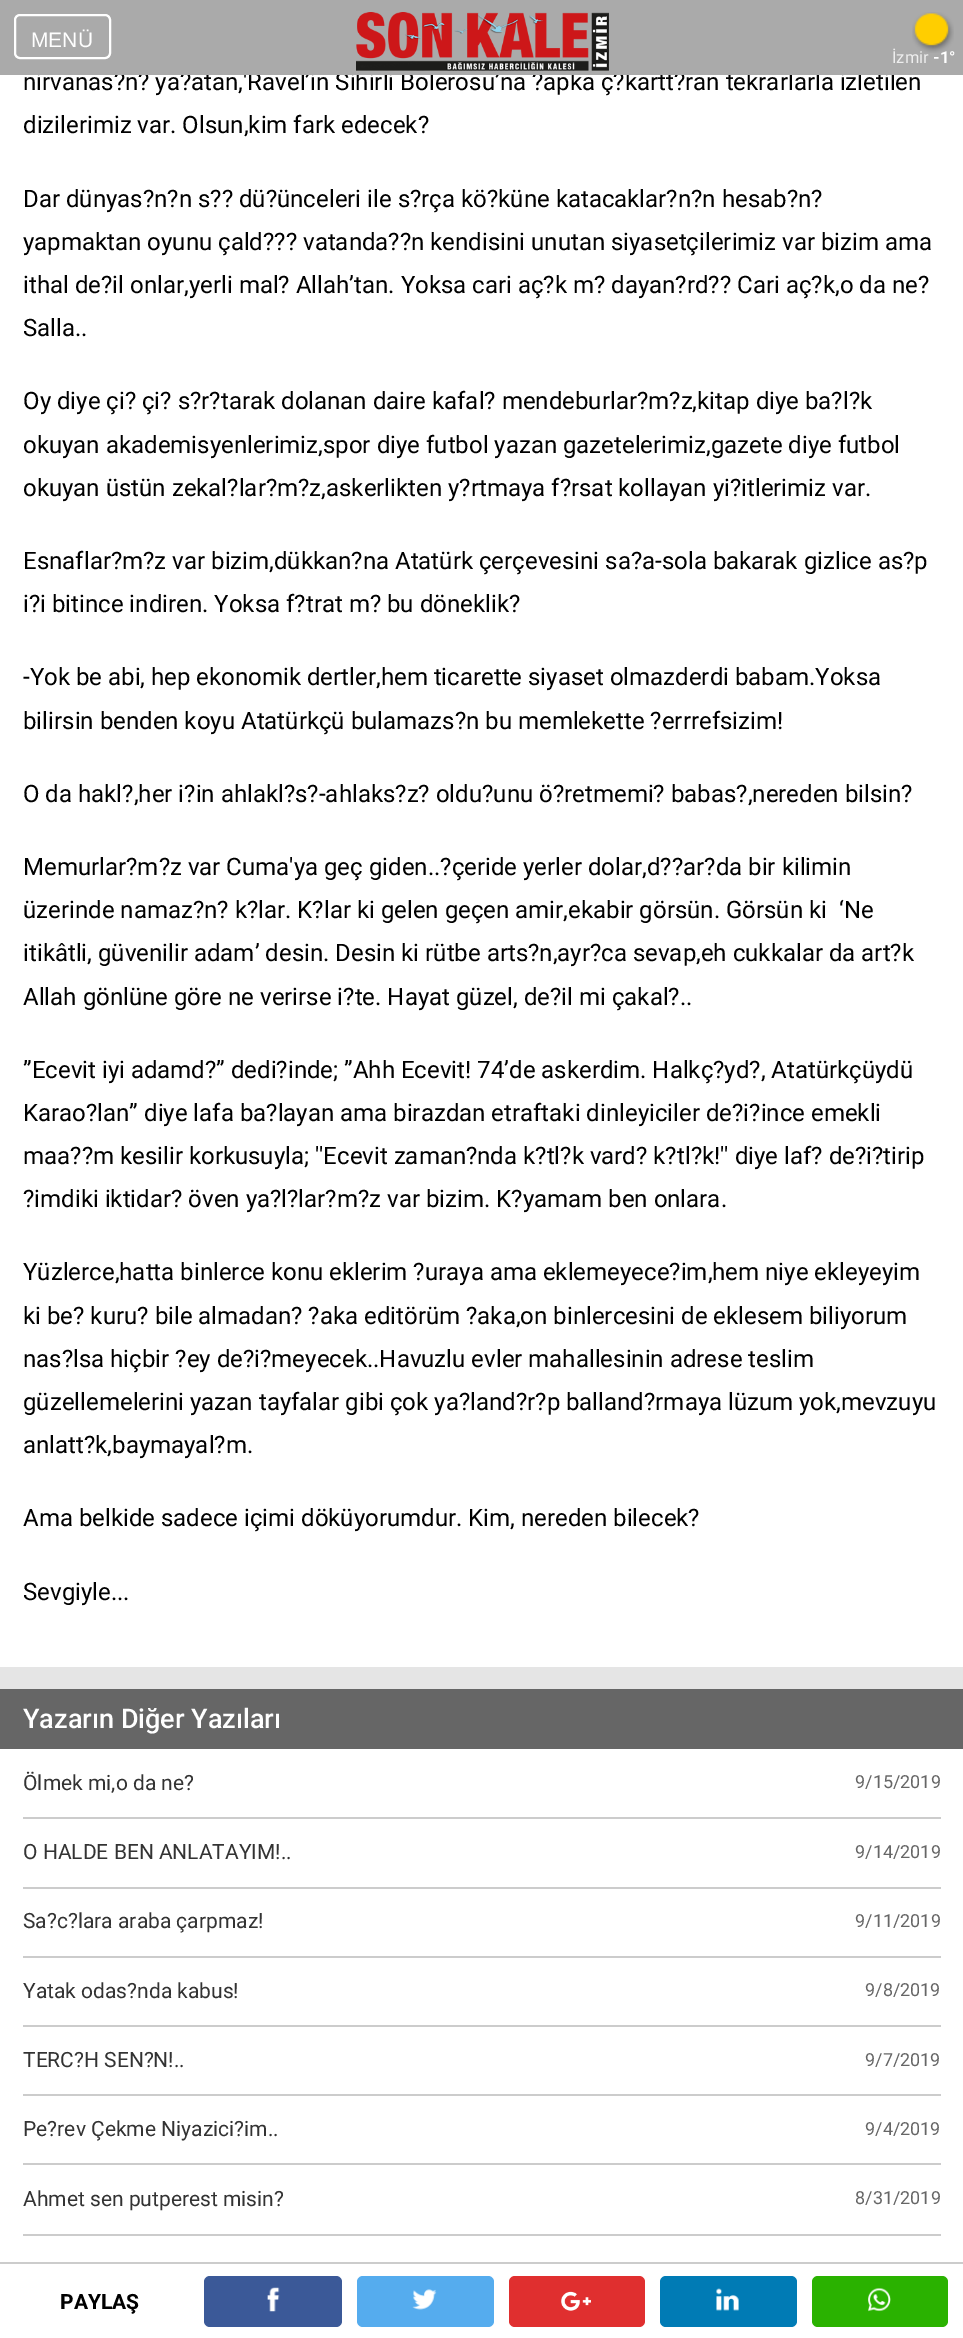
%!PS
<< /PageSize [963 2338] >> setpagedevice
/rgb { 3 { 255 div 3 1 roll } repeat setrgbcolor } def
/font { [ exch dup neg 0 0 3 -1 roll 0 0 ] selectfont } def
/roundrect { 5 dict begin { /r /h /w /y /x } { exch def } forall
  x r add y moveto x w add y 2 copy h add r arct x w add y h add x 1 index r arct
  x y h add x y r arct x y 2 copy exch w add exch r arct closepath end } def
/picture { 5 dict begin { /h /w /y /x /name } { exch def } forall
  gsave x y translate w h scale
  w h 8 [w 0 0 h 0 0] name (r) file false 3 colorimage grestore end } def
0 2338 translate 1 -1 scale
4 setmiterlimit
229 229 229 rgb
0 0 963 2338 rectfill
[
  [0 75 963 1592 255 255 255]
  [0 1749 963 513 255 255 255]
  [0 1689 963 60 102 102 102]
  [23 1817 918 2 204 204 204]
  [23 1887 918 2 204 204 204]
  [23 1956 918 2 204 204 204]
  [23 2025 918 2 204 204 204]
  [23 2094 918 2 204 204 204]
  [23 2163 918 2 204 204 204]
  [23 2234 918 2 204 204 204]
  [0 2264 963 74 255 255 255]
  [0 2262 963 2 204 204 204]
] { aload pop rgb rectfill } forall
59 89 152 rgb
204 2276 138 51 6 roundrect fill
(img/3.rgb) 267 2287 13 25 picture
85 172 238 rgb
357 2276 137 51 6 roundrect fill
(img/4.rgb) 412 2289 25 21 picture
224 47 47 rgb
509 2276 136 51 6 roundrect fill
(img/5.rgb) 561 2291 30 20 picture
0 123 181 rgb
660 2276 137 51 6 roundrect fill
(img/6.rgb) 716 2288 23 23 picture
42 178 0 rgb
812 2276 136 51 6 roundrect fill
(img/7.rgb) 868 2288 23 24 picture
/Roboto-Regular 24 font
0 0 0 rgb
23 90 moveto (nirvanas?n? ya?atan,'Ravel’in Sihirli Bolerosu’na ?apka ç?kartt?ran tekrarlarla izletilen) show
170 170 170 rgb
0 0 963 75 rectfill
(img/1.rgb) 356 12 253 59 picture
(img/2.rgb) 912 12 42 41 picture
/Roboto-Bold 16.5 font
255 255 255 rgb
933 63 moveto (-1°) show
/Roboto-Regular 16.5 font
238 238 238 rgb
892 63 moveto (İzmir) show
255 255 255 rgb
2 setlinewidth
15 15 95 43 5 roundrect stroke
/LiberationSans-Regular 21 font
31 47 moveto (MENÜ) show
/Roboto-Regular 24 font
0 0 0 rgb
[
  [(dizilerimiz var. Olsun,kim fark edecek?) 23 133]
  [(Dar dünyas?n?n s?? dü?ünceleri ile s?rça kö?küne katacaklar?n?n hesab?n?) 23 207]
  [(yapmaktan oyunu çald??? vatanda??n kendisini unutan siyasetçilerimiz var bizim ama) 23 250]
  [(ithal de?il onlar,yerli mal? Allah’tan. Yoksa cari aç?k m? dayan?rd?? Cari aç?k,o da ne?) 23 293]
  [(Salla..) 23 336]
  [(Oy diye çi? çi? s?r?tarak dolanan daire kafal? mendeburlar?m?z,kitap diye ba?l?k) 23 409]
  [(okuyan akademisyenlerimiz,spor diye futbol yazan gazetelerimiz,gazete diye futbol) 23 453]
  [(okuyan üstün zekal?lar?m?z,askerlikten y?rtmaya f?rsat kollayan yi?itlerimiz var.) 23 496]
  [(Esnaflar?m?z var bizim,dükkan?na Atatürk çerçevesini sa?a-sola bakarak gizlice as?p) 23 569]
  [(i?i bitince indiren. Yoksa f?trat m? bu döneklik?) 23 612]
  [(-Yok be abi, hep ekonomik dertler,hem ticarette siyaset olmazderdi babam.Yoksa) 23 685]
  [(bilirsin benden koyu Atatürkçü bulamazs?n bu memlekette ?errrefsizim!) 23 729]
  [(O da hakl?,her i?in ahlakl?s?-ahlaks?z? oldu?unu ö?retmemi? babas?,nereden bilsin?) 23 802]
  [(Memurlar?m?z var Cuma'ya geç giden..?çeride yerler dolar,d??ar?da bir kilimin) 23 875]
  [(üzerinde namaz?n? k?lar. K?lar ki gelen geçen amir,ekabir görsün. Görsün ki  ‘Ne) 23 918]
  [(itikâtli, güvenilir adam’ desin. Desin ki rütbe arts?n,ayr?ca sevap,eh cukkalar da art?k) 23 961]
  [(Allah gönlüne göre ne verirse i?te. Hayat güzel, de?il mi çakal?..) 23 1005]
  [(”Ecevit iyi adamd?” dedi?inde; ”Ahh Ecevit! 74’de askerdim. Halkç?yd?, Atatürkçüydü) 23 1078]
  [(Karao?lan” diye lafa ba?layan ama birazdan etraftaki dinleyiciler de?i?ince emekli) 23 1121]
  [(maa??m kesilir korkusuyla; ''Ecevit zaman?nda k?tl?k vard? k?tl?k!'' diye laf? de?i?tirip) 23 1164]
  [(?imdiki iktidar? öven ya?l?lar?m?z var bizim. K?yamam ben onlara.) 23 1207]
  [(Yüzlerce,hatta binlerce konu eklerim ?uraya ama eklemeyece?im,hem niye ekleyeyim) 23 1280]
  [(ki be? kuru? bile almadan? ?aka editörüm ?aka,on binlercesini de eklesem biliyorum) 23 1324]
  [(nas?lsa hiçbir ?ey de?i?meyecek..Havuzlu evler mahallesinin adrese teslim) 23 1367]
  [(güzellemelerini yazan tayfalar gibi çok ya?land?r?p balland?rmaya lüzum yok,mevzuyu) 23 1410]
  [(anlatt?k,baymayal?m.) 23 1453]
  [(Ama belkide sadece içimi döküyorumdur. Kim, nereden bilecek?) 23 1526]
  [(Sevgiyle...) 23 1600]
] { aload pop moveto show } forall
/Roboto-Medium 27 font
255 255 255 rgb
23 1728 moveto (Yazarın Diğer Yazıları) show
/Roboto-Regular 21 font
51 51 51 rgb
23 1790 moveto (Ölmek mi,o da ne?) show
/Roboto-Regular 18 font
102 102 102 rgb
855 1788 moveto (9/15/2019) show
/Roboto-Regular 21 font
51 51 51 rgb
23 1859 moveto (O HALDE BEN ANLATAYIM!..) show
/Roboto-Regular 18 font
102 102 102 rgb
855 1858 moveto (9/14/2019) show
/Roboto-Regular 21 font
51 51 51 rgb
23 1928 moveto (Sa?c?lara araba çarpmaz!) show
/Roboto-Regular 18 font
102 102 102 rgb
855 1927 moveto (9/11/2019) show
/Roboto-Regular 21 font
51 51 51 rgb
23 1998 moveto (Yatak odas?nda kabus!) show
/Roboto-Regular 18 font
102 102 102 rgb
865 1996 moveto (9/8/2019) show
/Roboto-Regular 21 font
51 51 51 rgb
23 2067 moveto (TERC?H SEN?N!..) show
/Roboto-Regular 18 font
102 102 102 rgb
865 2066 moveto (9/7/2019) show
/Roboto-Regular 21 font
51 51 51 rgb
23 2136 moveto (Pe?rev Çekme Niyazici?im..) show
/Roboto-Regular 18 font
102 102 102 rgb
865 2135 moveto (9/4/2019) show
/Roboto-Regular 21 font
51 51 51 rgb
23 2206 moveto (Ahmet sen putperest misin?) show
/Roboto-Regular 18 font
102 102 102 rgb
855 2204 moveto (8/31/2019) show
/Roboto-Bold 21 font
0 0 0 rgb
60 2309 moveto (PAYLAŞ) show
showpage
